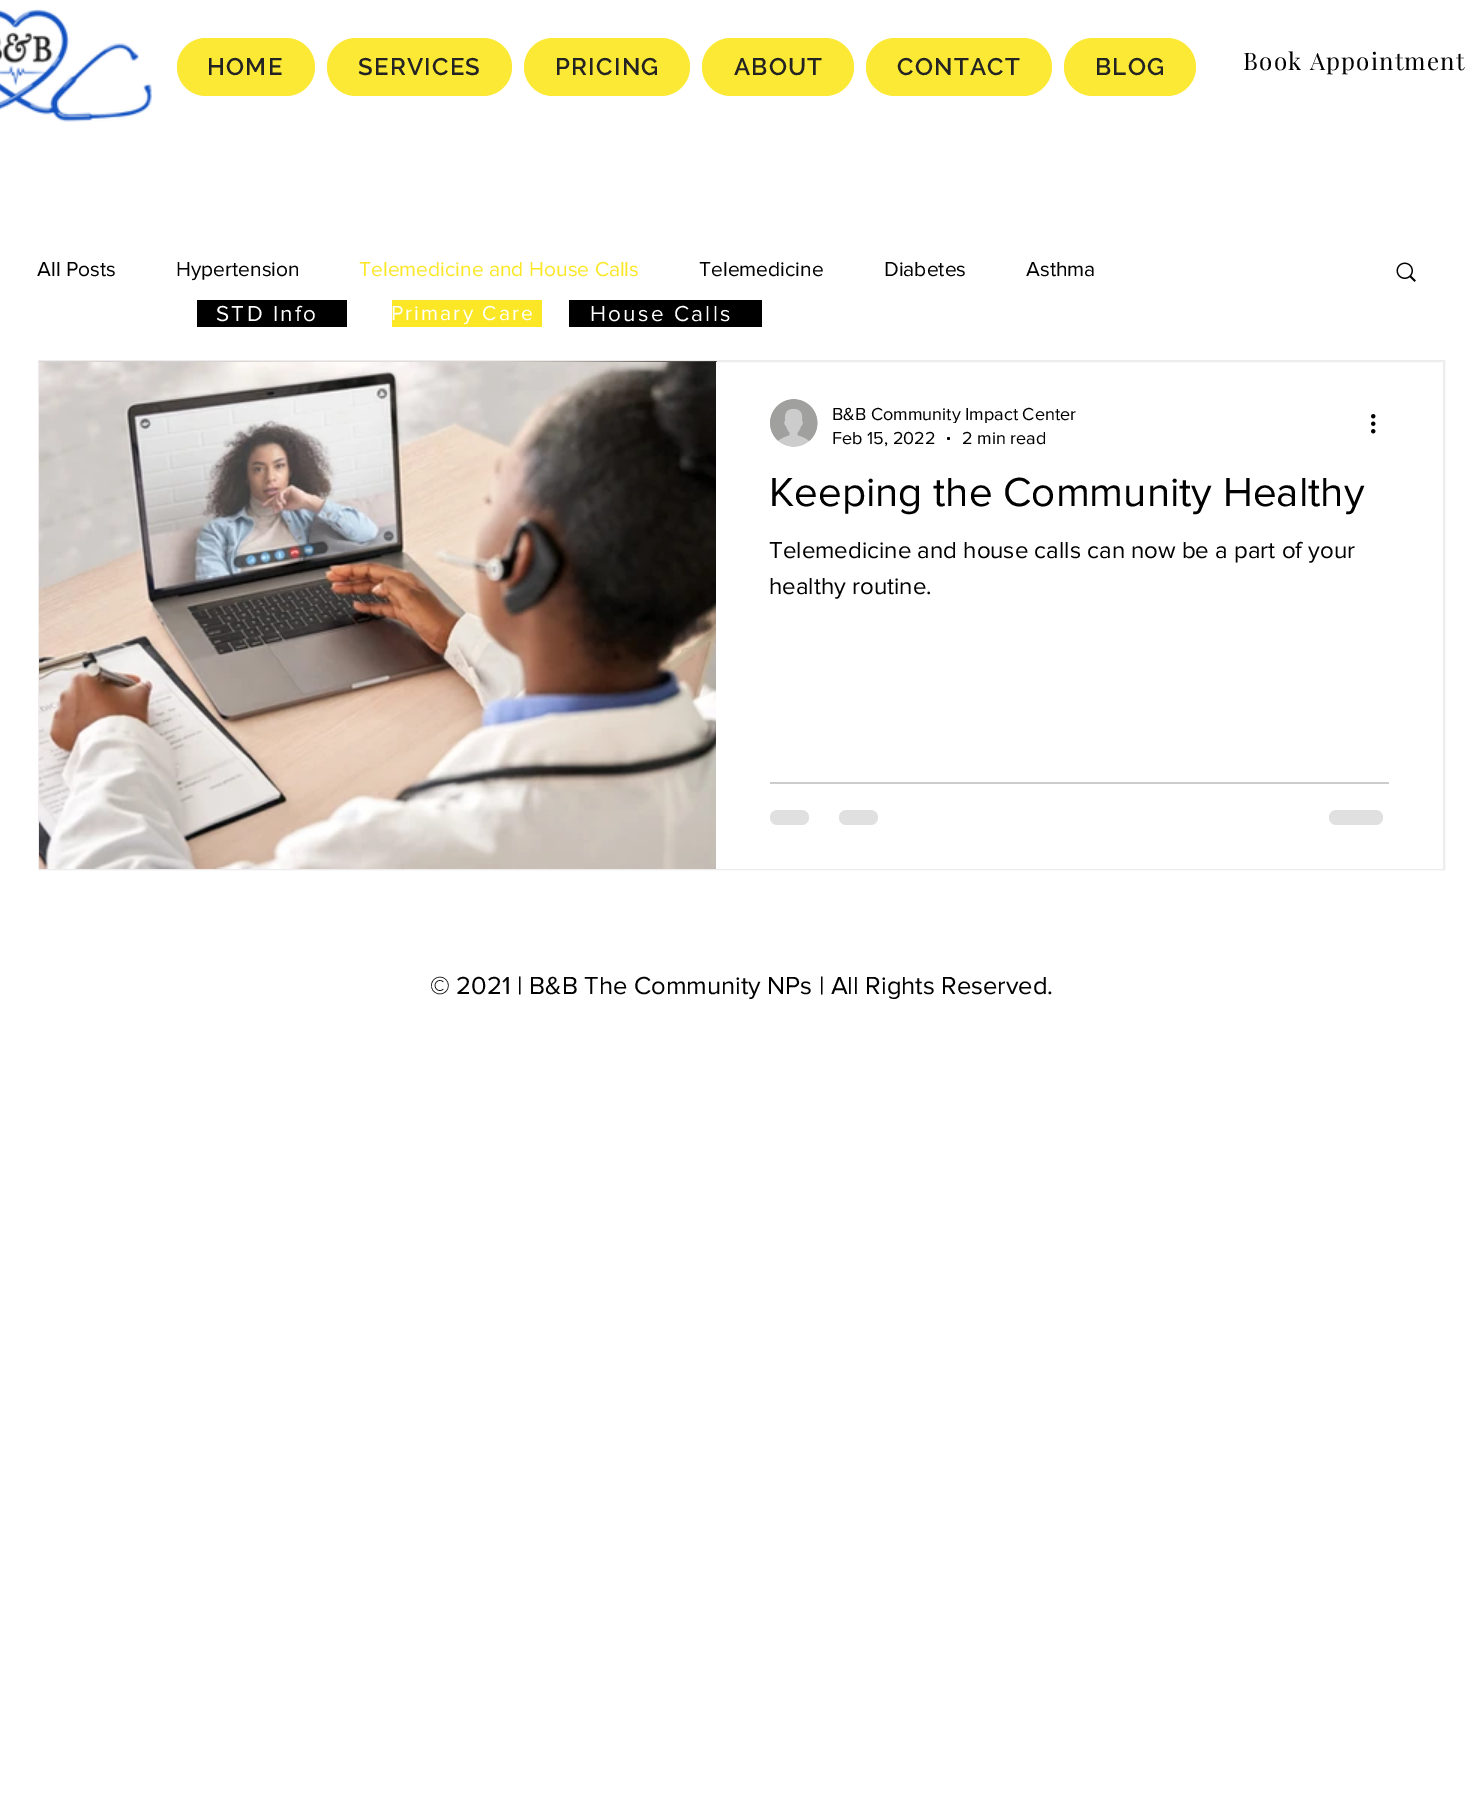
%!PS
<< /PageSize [1483 1803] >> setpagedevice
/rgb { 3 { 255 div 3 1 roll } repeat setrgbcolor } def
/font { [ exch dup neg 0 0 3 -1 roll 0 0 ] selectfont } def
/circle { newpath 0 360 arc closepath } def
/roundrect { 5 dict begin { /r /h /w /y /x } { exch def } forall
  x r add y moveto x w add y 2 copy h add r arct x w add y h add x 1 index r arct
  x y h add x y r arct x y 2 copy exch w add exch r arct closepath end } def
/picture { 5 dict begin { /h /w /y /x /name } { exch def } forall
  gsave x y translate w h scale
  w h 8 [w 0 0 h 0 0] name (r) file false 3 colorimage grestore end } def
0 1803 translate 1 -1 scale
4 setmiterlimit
255 255 255 rgb
0 0 1483 1803 rectfill
(img/1.rgb) 0 9 152 113 picture
252 233 53 rgb
177 38 138 58 29 roundrect fill
327 38 185 58 29 roundrect fill
524 38 166 58 29 roundrect fill
702 38 152 58 29 roundrect fill
866 38 186 58 29 roundrect fill
1064 38 132 58 29 roundrect fill
(img/2.rgb) 1396 262 20 20 picture
238 236 236 rgb
2 setlinewidth
39 361 1405 508 rectstroke
(img/3.rgb) 39 361 678 1 picture
(img/4.rgb) 39 362 677 507 picture
255 255 255 rgb
716 868 727 1 rectfill
(img/5.rgb) 770 399 48 48 picture
0 0 0 rgb
948.5 438.5 1.5 circle fill
(img/6.rgb) 1371 414 5 20 picture
204 204 204 rgb
770 782 619 2 rectfill
224 224 224 rgb
770 810 39 15 7.5 roundrect fill
839 810 39 15 7.5 roundrect fill
1329 810 54 15 7.5 roundrect fill
[
  [197 300 150 27 0 0 0]
  [392 300 150 27 252 231 38]
  [569 300 193 27 0 0 0]
] { aload pop rgb rectfill } forall
/Raleway-SemiBold 24 font
36 35 35 rgb
207 75 moveto 1.25 0 (HOME) ashow
358 75 moveto 1.25 0 (SERVICES) ashow
555 75 moveto 1.25 0 (PRICING) ashow
734 75 moveto 1.25 0 (ABOUT) ashow
897 75 moveto 1.25 0 (CONTACT) ashow
1095 75 moveto 1.25 0 (BLOG) ashow
/PlayfairDisplay-Regular 24 font
0 0 0 rgb
1243 70 moveto 1.25 0 (Book Appointment) ashow
/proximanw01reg-Regular 21 font
37 276 moveto (All Posts) show
176 276 moveto (Hypertension) show
252 231 38 rgb
359 276 moveto (Telemedicine and House Calls) show
0 0 0 rgb
[
  [(Telemedicine) 699 276]
  [(Diabetes) 884 276]
  [(Asthma) 1026 276]
] { aload pop moveto show } forall
gsave
833 404 243 19 rectclip
/proximanw01reg-Regular 18 font
832 420 moveto (B&B Community Impact Center) show
grestore
/proximanw01reg-Regular 18 font
832 444 moveto (Feb 15, 2022) show
962 444 moveto (2 min read) show
/proximanw01reg-Regular 42 font
769 506 moveto (Keeping the Community Healthy) show
/proximanw01reg-Regular 24 font
769 558 moveto (Telemedicine and house calls can now be a part of your) show
769 594 moveto (healthy routine.) show
/proximanw01reg-Regular 22.5 font
255 255 255 rgb
216 321 moveto 2.25 0 (STD Info) ashow
/proximanw01reg-Regular 21 font
391 320 moveto 2.1 0 (Primary Care) ashow
/proximanw01reg-Regular 22.5 font
590 321 moveto 2.25 0 (House Calls) ashow
/proximanw01reg-Regular 25.5 font
0 0 0 rgb
430 994 moveto (© 2021 | B&B The Community NPs | All Rights Reserved.) show
showpage
